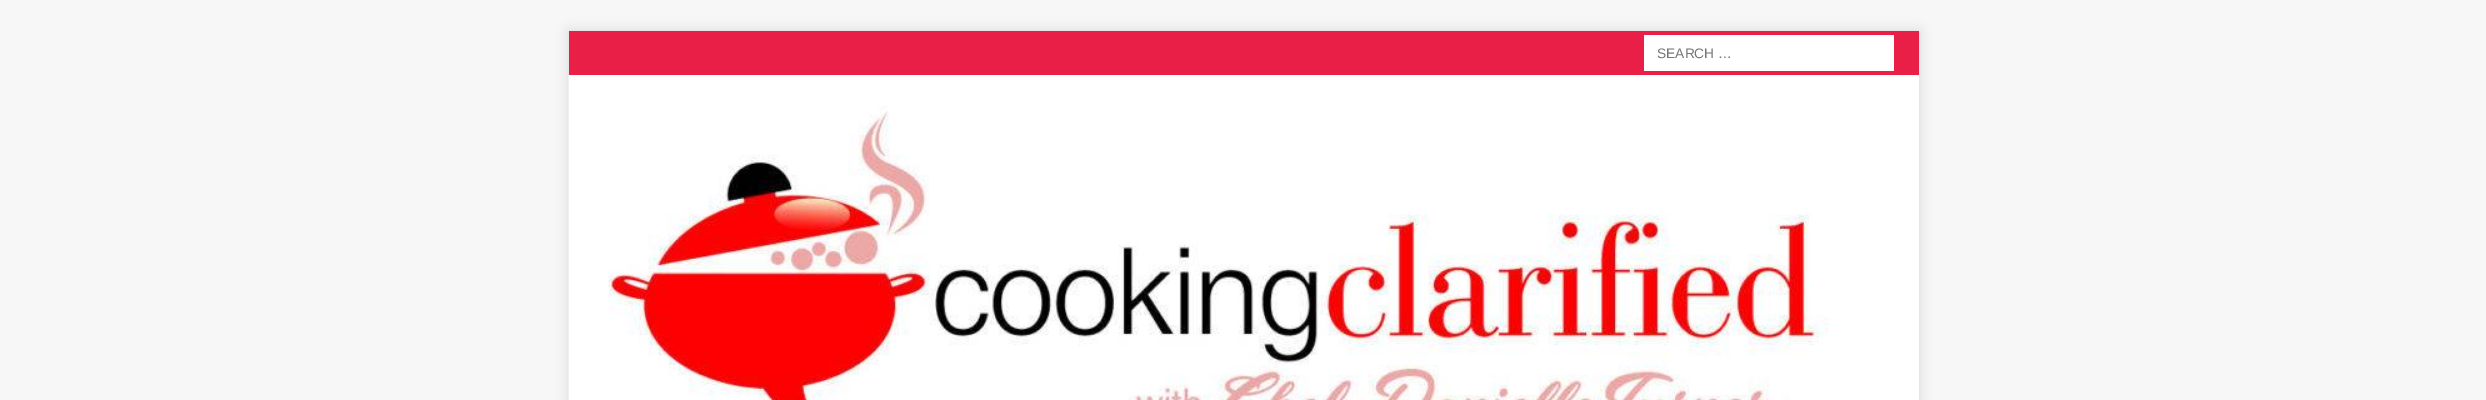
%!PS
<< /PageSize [2486 400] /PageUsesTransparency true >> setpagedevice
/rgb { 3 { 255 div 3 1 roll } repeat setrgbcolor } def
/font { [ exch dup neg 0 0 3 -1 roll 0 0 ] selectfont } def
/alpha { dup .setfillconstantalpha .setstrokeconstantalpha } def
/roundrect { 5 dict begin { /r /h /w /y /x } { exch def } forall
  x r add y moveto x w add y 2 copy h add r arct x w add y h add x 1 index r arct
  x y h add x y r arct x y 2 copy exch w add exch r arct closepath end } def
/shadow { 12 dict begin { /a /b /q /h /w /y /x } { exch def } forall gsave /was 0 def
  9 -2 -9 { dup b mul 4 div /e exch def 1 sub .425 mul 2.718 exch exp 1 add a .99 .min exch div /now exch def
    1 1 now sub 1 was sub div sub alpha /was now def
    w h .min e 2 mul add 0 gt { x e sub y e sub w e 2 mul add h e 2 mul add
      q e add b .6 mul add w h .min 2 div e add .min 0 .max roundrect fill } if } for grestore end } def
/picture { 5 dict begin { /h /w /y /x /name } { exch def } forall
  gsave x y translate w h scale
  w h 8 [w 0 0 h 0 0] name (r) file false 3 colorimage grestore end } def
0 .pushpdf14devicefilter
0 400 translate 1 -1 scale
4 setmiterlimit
247 247 247 rgb
0 0 2486 400 rectfill
50 50 50 rgb
569 31 1350 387 0 6 0.17 shadow
[
  [569 31 1350 44 233 31 72]
  [1644 35 250 36 255 255 255]
  [1829 75 90 325 255 255 255]
] { aload pop rgb rectfill } forall
(img/1.rgb) 568 75 1261 325 picture
/LiberationSans-Regular 13.75 font
117 117 117 rgb
1657 58 moveto (SEARCH …) show
.poppdf14devicefilter showpage
